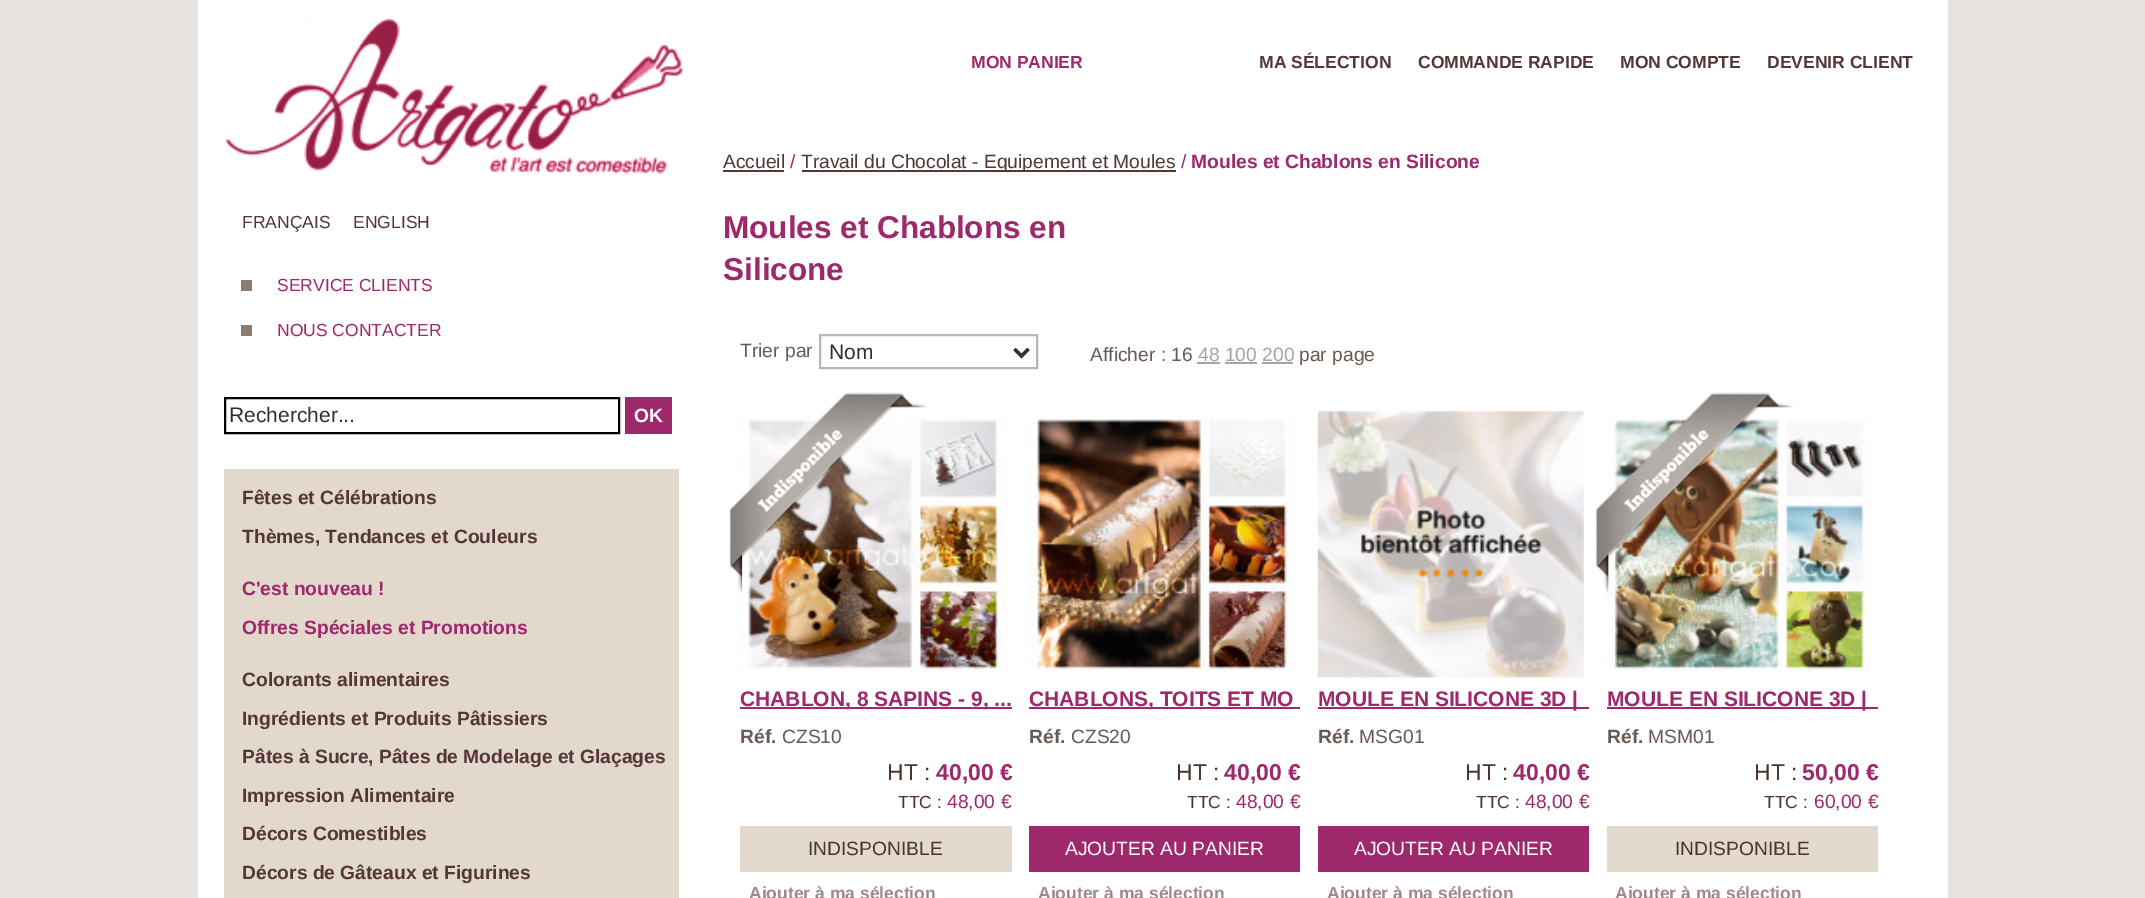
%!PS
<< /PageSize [2145 898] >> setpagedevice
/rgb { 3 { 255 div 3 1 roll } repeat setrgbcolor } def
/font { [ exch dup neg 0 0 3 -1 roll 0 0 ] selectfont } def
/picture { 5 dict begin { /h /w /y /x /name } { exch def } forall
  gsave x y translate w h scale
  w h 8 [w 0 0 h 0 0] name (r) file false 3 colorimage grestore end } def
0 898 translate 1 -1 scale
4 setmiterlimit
232 228 224 rgb
0 0 2145 898 rectfill
255 255 255 rgb
198 0 1750 898 rectfill
(img/1.rgb) 225 18 458 156 picture
139 125 116 rgb
241 280 11 11 rectfill
241 325 11 11 rectfill
0 0 0 rgb
2 setlinewidth
225 398 394 35 rectstroke
[
  [625 397 47 37 158 40 108]
  [224 469 455 429 226 217 204]
  [723 170 61 2 88 54 54]
  [802 170 374 2 88 54 54]
] { aload pop rgb rectfill } forall
182 182 182 rgb
820 335 217 33 rectstroke
47 47 47 rgb
3.5 setlinewidth
1014.5 349 moveto 1021.5 356 lineto 1028.5 349 lineto stroke
[
  [1197 362 23 2 169 162 160]
  [1225 362 32 2 169 162 160]
  [1262 362 31 2 169 162 160]
] { aload pop rgb rectfill } forall
(img/3.rgb) 740 418 267 253 picture
(img/2.rgb) 729 392 198 201 picture
158 40 108 rgb
740 707 272 2 rectfill
227 217 205 rgb
740 826 272 46 rectfill
(img/4.rgb) 1029 418 266 253 picture
158 40 108 rgb
1029 707 271 2 rectfill
1029 826 271 46 rectfill
(img/5.rgb) 1317 409 267 273 picture
1318 707 271 2 rectfill
1318 826 271 46 rectfill
(img/7.rgb) 1606 418 267 253 picture
(img/6.rgb) 1595 392 199 201 picture
1607 707 271 2 rectfill
227 217 205 rgb
1607 826 271 46 rectfill
/LiberationSans-Regular 17.5 font
85 54 55 rgb
242 228 moveto (FRANÇAIS) show
353 228 moveto (ENGLISH) show
158 40 108 rgb
277 291 moveto (SERVICE CLIENTS) show
277 336 moveto (NOUS CONTACTER) show
/LiberationSans-Regular 21 font
47 47 47 rgb
229 422 moveto (Rechercher...) show
/LiberationSans-Bold 19.25 font
255 255 255 rgb
634 422 moveto (OK) show
85 54 55 rgb
242 504 moveto (Fêtes et Célébrations) show
242 543 moveto (Thèmes, Tendances et Couleurs) show
158 40 108 rgb
242 595 moveto (C'est nouveau !) show
242 634 moveto (Offres Spéciales et Promotions) show
85 54 55 rgb
[
  [(Colorants alimentaires) 242 686]
  [(Ingrédients et Produits Pâtissiers) 242 725]
  [(Pâtes à Sucre, Pâtes de Modelage et Glaçages) 242 763]
  [(Impression Alimentaire) 242 802]
  [(Décors Comestibles) 242 840]
  [(Décors de Gâteaux et Figurines) 242 879]
] { aload pop moveto show } forall
/LiberationSans-Bold 17.5 font
158 40 108 rgb
971 68 moveto (MON PANIER) show
85 54 55 rgb
[
  [(MA SÉLECTION) 1259 68]
  [(COMMANDE RAPIDE) 1418 68]
  [(MON COMPTE) 1620 68]
  [(DEVENIR CLIENT) 1767 68]
] { aload pop moveto show } forall
/LiberationSans-Regular 19.25 font
723 168 moveto (Accueil) show
158 40 108 rgb
790 168 moveto (/) show
85 54 55 rgb
801 168 moveto (Travail du Chocolat - Equipement et Moules) show
158 40 108 rgb
1181 168 moveto (/) show
/LiberationSans-Bold 19.25 font
1191 168 moveto (Moules et Chablons en Silicone) show
/LiberationSans-Bold 31.5 font
723 238 moveto (Moules et Chablons en) show
723 280 moveto (Silicone) show
/LiberationSans-Regular 19.25 font
105 90 83 rgb
740 357 moveto (Trier par) show
/LiberationSans-Regular 21 font
47 47 47 rgb
829 359 moveto (Nom) show
/LiberationSans-Regular 19.25 font
105 90 83 rgb
1090 361 moveto (Afficher : 16) show
169 162 160 rgb
1198 361 moveto (48 100 200) show
105 90 83 rgb
1299 361 moveto (par page) show
/LiberationSans-Bold 21 font
158 40 108 rgb
740 706 moveto (CHABLON, 8 SAPINS - 9, ...) show
/LiberationSans-Bold 19.25 font
105 90 83 rgb
740 743 moveto (Réf.) show
/LiberationSans-Regular 19.25 font
782 743 moveto (CZS10) show
/LiberationSans-Regular 23 font
77 52 47 rgb
887 780 moveto (HT :) show
/LiberationSans-Bold 23 font
158 40 108 rgb
936 780 moveto (40,00 €) show
/LiberationSans-Regular 17.5 font
77 52 47 rgb
898 808 moveto (TTC :) show
/LiberationSans-Regular 19.25 font
158 40 108 rgb
947 808 moveto (48,00 €) show
77 52 47 rgb
808 855 moveto (INDISPONIBLE) show
/LiberationSans-Bold 17.5 font
161 135 135 rgb
749 899 moveto (Ajouter à ma sélection) show
/LiberationSans-Bold 21 font
158 40 108 rgb
1029 706 moveto (CHABLONS, TOITS ET MO) show
/LiberationSans-Bold 19.25 font
105 90 83 rgb
1029 743 moveto (Réf.) show
/LiberationSans-Regular 19.25 font
1071 743 moveto (CZS20) show
/LiberationSans-Regular 23 font
77 52 47 rgb
1176 780 moveto (HT :) show
/LiberationSans-Bold 23 font
158 40 108 rgb
1224 780 moveto (40,00 €) show
/LiberationSans-Regular 17.5 font
77 52 47 rgb
1187 808 moveto (TTC :) show
/LiberationSans-Regular 19.25 font
158 40 108 rgb
1236 808 moveto (48,00 €) show
255 255 255 rgb
1065 855 moveto (AJOUTER AU PANIER) show
/LiberationSans-Bold 17.5 font
161 135 135 rgb
1038 899 moveto (Ajouter à ma sélection) show
/LiberationSans-Bold 21 font
158 40 108 rgb
1318 706 moveto (MOULE EN SILICONE 3D |) show
/LiberationSans-Bold 19.25 font
105 90 83 rgb
1318 743 moveto (Réf.) show
/LiberationSans-Regular 19.25 font
1359 743 moveto (MSG01) show
/LiberationSans-Regular 23 font
77 52 47 rgb
1465 780 moveto (HT :) show
/LiberationSans-Bold 23 font
158 40 108 rgb
1513 780 moveto (40,00 €) show
/LiberationSans-Regular 17.5 font
77 52 47 rgb
1476 808 moveto (TTC :) show
/LiberationSans-Regular 19.25 font
158 40 108 rgb
1525 808 moveto (48,00 €) show
255 255 255 rgb
1354 855 moveto (AJOUTER AU PANIER) show
/LiberationSans-Bold 17.5 font
161 135 135 rgb
1327 899 moveto (Ajouter à ma sélection) show
/LiberationSans-Bold 21 font
158 40 108 rgb
1607 706 moveto (MOULE EN SILICONE 3D |) show
/LiberationSans-Bold 19.25 font
105 90 83 rgb
1607 743 moveto (Réf.) show
/LiberationSans-Regular 19.25 font
1648 743 moveto (MSM01) show
/LiberationSans-Regular 23 font
77 52 47 rgb
1754 780 moveto (HT :) show
/LiberationSans-Bold 23 font
158 40 108 rgb
1802 780 moveto (50,00 €) show
/LiberationSans-Regular 17.5 font
77 52 47 rgb
1764 808 moveto (TTC :) show
/LiberationSans-Regular 19.25 font
158 40 108 rgb
1814 808 moveto (60,00 €) show
77 52 47 rgb
1675 855 moveto (INDISPONIBLE) show
/LiberationSans-Bold 17.5 font
161 135 135 rgb
1615 899 moveto (Ajouter à ma sélection) show
showpage
